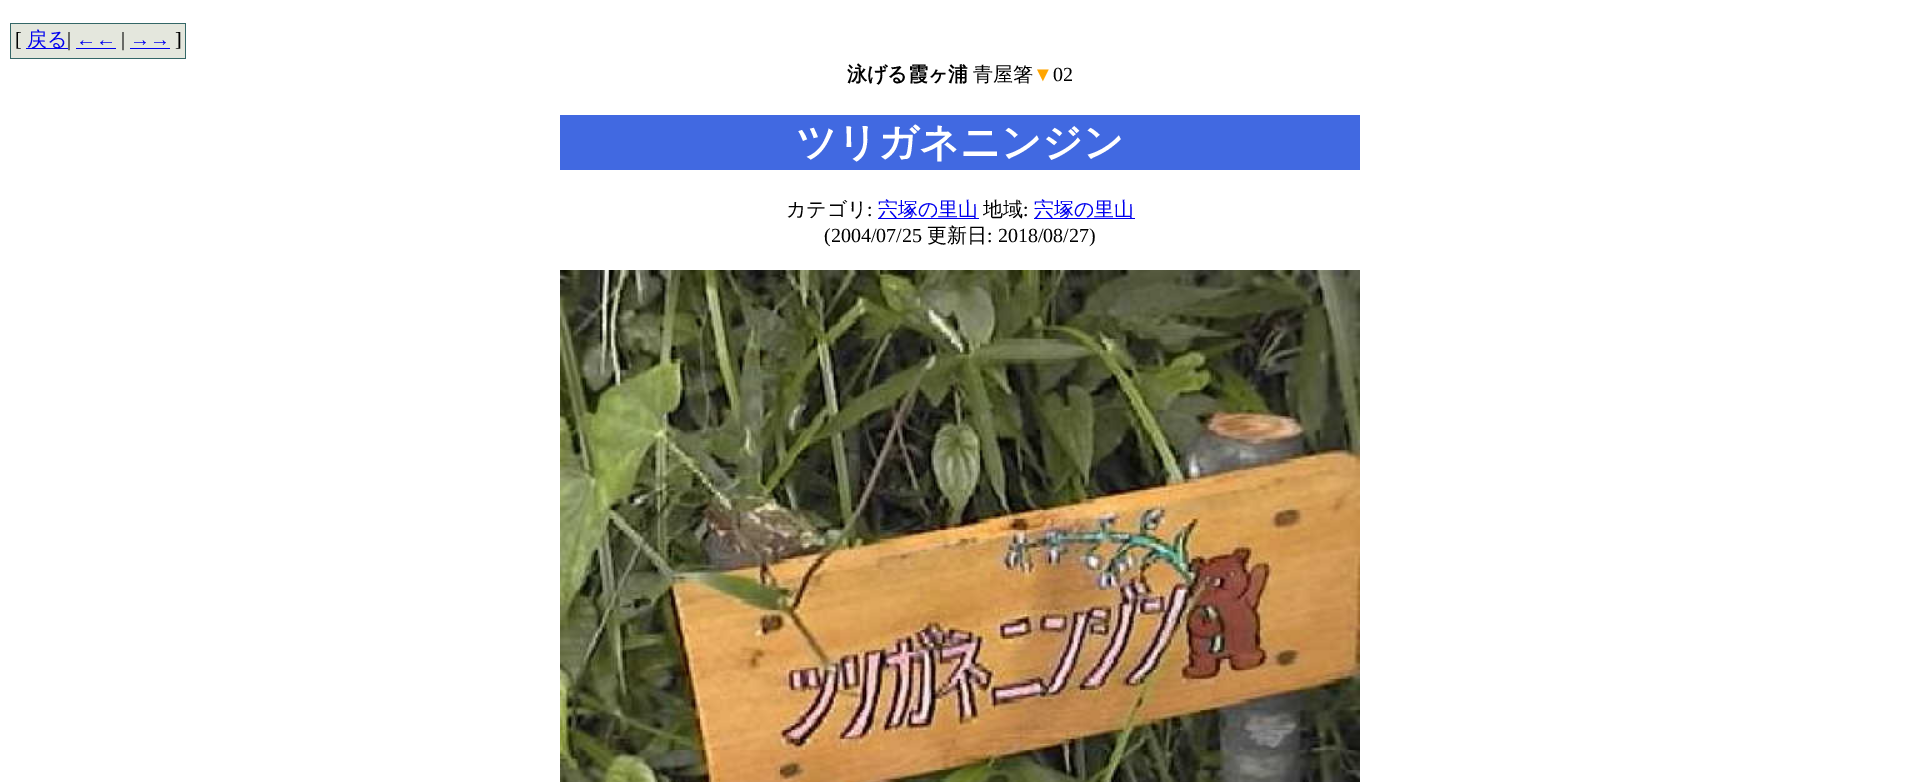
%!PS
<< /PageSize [1919 782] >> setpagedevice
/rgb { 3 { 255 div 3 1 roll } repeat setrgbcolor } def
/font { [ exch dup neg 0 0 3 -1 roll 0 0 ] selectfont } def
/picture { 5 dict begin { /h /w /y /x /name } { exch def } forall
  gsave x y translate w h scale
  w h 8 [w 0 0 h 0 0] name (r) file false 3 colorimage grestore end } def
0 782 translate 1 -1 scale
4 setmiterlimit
255 255 255 rgb
0 0 1919 782 rectfill
[
  [10 23 176 36 52 103 103]
  [11 24 174 34 228 231 221]
  [26 48 42 1 0 0 238]
  [76 48 40 1 0 0 238]
  [130 48 40 1 0 0 238]
  [560 115 800 55 65 105 225]
  [878 218 101 1 0 0 238]
  [1034 218 101 1 0 0 238]
] { aload pop rgb rectfill } forall
(img/1.rgb) 560 270 800 512 picture
/LiberationSerif-Regular 20 font
0 0 0 rgb
15 46 moveto ([) show
/WenQuanYiZenHei-Medium 20 font
0 0 238 rgb
27 46 moveto (戻る) show
/LiberationSerif-Regular 20 font
0 0 0 rgb
67 46 moveto (|) show
0 0 238 rgb
76 46 moveto (←←) show
0 0 0 rgb
121 46 moveto (|) show
0 0 238 rgb
130 46 moveto (→→) show
0 0 0 rgb
175 46 moveto (]) show
/WenQuanYiZenHei-Bold 20 font
847 81 moveto (泳げる霞ヶ浦) show
/WenQuanYiZenHei-Medium 20 font
973 81 moveto (青屋箸) show
/LiberationSerif-Regular 20 font
255 165 0 rgb
1033 81 moveto (▼) show
0 0 0 rgb
1053 81 moveto (02) show
/WenQuanYiZenHei-Bold 40 font
255 255 255 rgb
796 156 moveto (ツリガネニンジン) show
/WenQuanYiZenHei-Medium 20 font
0 0 0 rgb
786 216 moveto (カテゴリ) show
/LiberationSerif-Regular 20 font
867 216 moveto (:) show
/WenQuanYiZenHei-Medium 20 font
0 0 238 rgb
878 216 moveto (宍塚の里山) show
0 0 0 rgb
983 216 moveto (地域) show
/LiberationSerif-Regular 20 font
1023 216 moveto (:) show
/WenQuanYiZenHei-Medium 20 font
0 0 238 rgb
1034 216 moveto (宍塚の里山) show
/LiberationSerif-Regular 20 font
0 0 0 rgb
824 242 moveto (\(2004/07/25) show
/WenQuanYiZenHei-Medium 20 font
927 242 moveto (更新日) show
/LiberationSerif-Regular 20 font
987 242 moveto (: 2018/08/27\)) show
showpage
